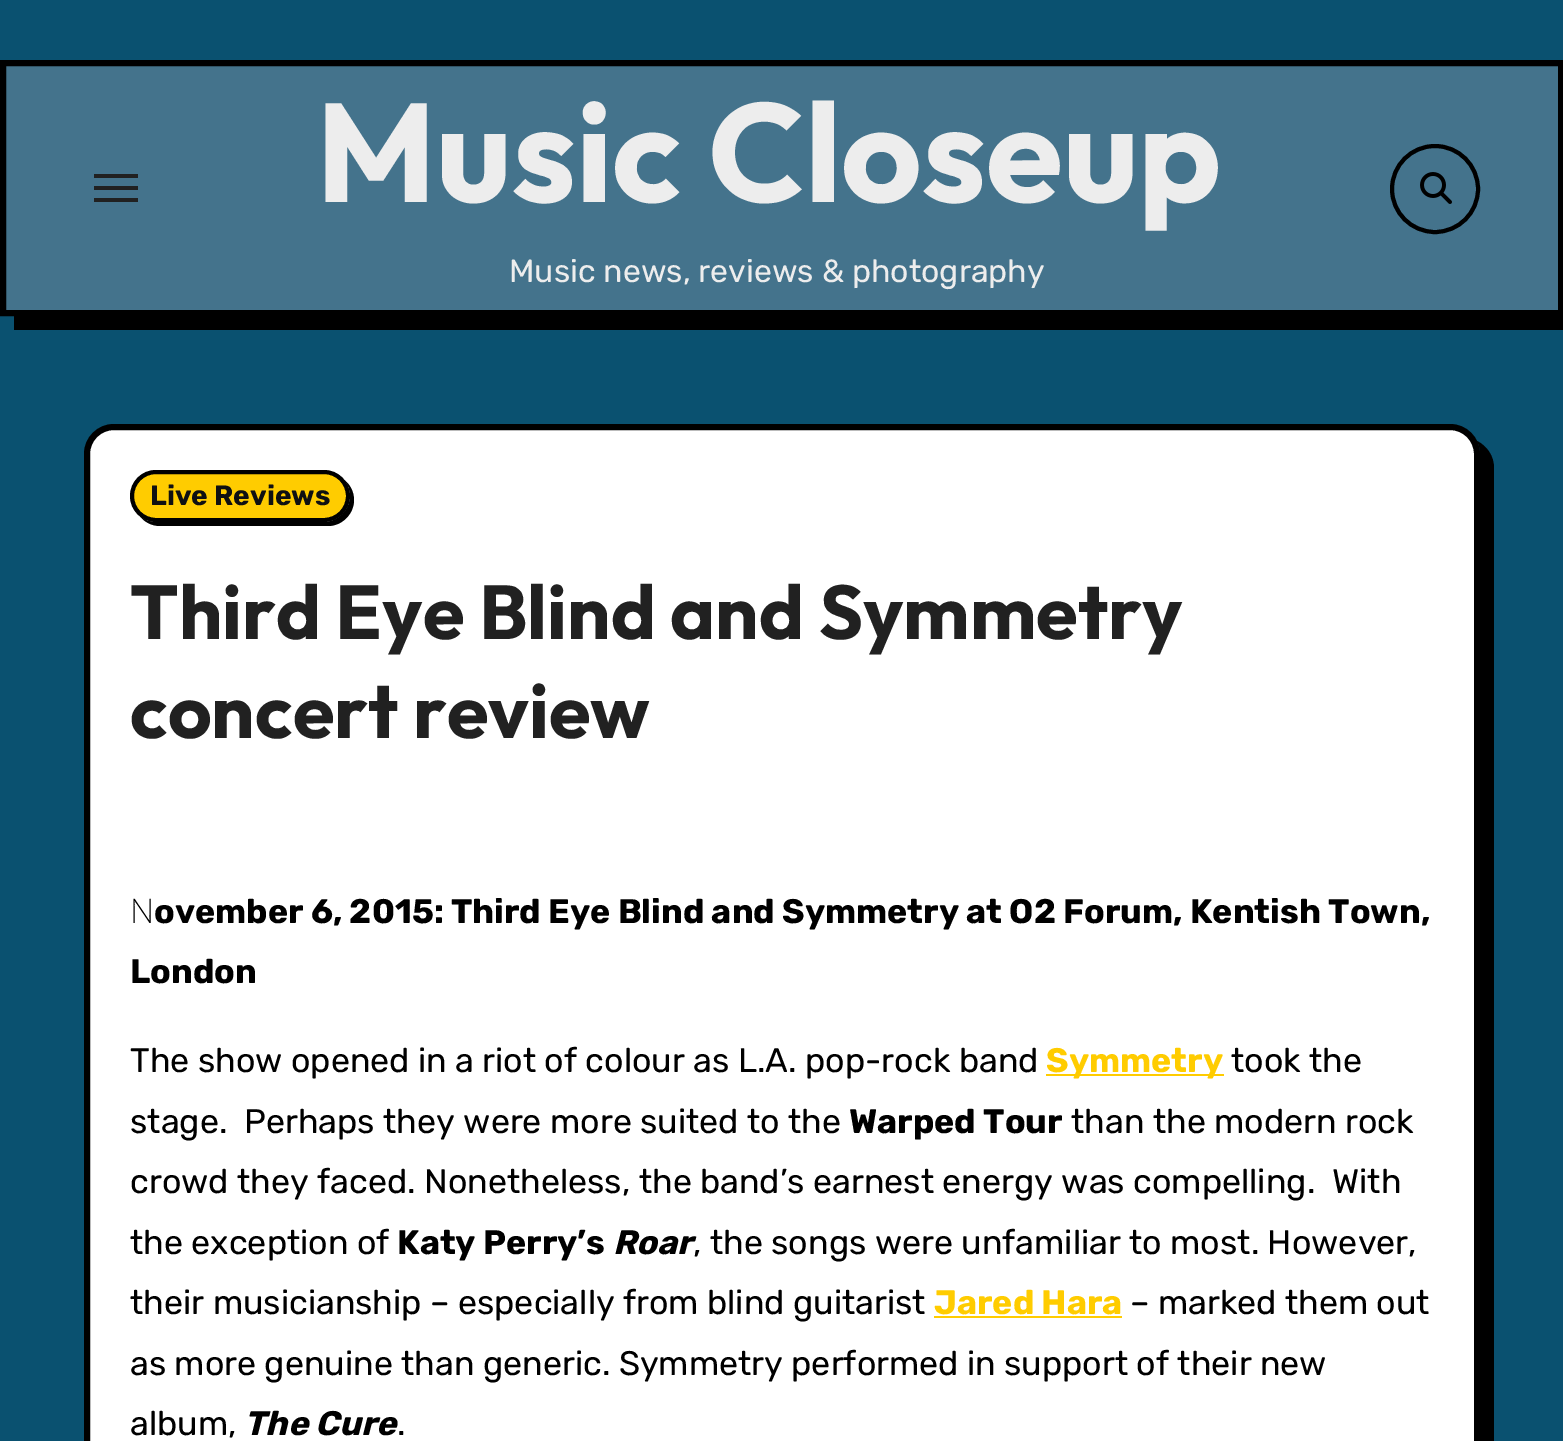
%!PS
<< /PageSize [1563 1441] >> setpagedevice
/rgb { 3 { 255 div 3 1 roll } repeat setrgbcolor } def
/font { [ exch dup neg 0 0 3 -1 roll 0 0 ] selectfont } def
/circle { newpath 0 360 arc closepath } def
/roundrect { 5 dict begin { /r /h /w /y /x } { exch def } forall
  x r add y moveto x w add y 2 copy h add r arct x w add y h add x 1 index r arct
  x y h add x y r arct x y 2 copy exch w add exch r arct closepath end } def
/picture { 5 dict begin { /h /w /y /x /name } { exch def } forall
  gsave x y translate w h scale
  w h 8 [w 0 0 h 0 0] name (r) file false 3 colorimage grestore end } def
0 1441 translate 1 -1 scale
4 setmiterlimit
10 81 112 rgb
0 0 1563 1441 rectfill
0 0 0 rgb
14 316 moveto 14 330 lineto 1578 330 lineto 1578 74 lineto 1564 74 lineto 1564 316 lineto closepath fill
68 115 140 rgb
3 63 moveto 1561 63 lineto 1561 313 lineto 3 313 lineto closepath gsave fill grestore
0 0 0 rgb
6 setlinewidth
stroke
[
  [94 174 44 4 33 33 33]
  [94 186 44 4 33 33 33]
  [94 198 44 4 33 33 33]
] { aload pop rgb rectfill } forall
0 0 0 rgb
4 setlinewidth
1435 189 43 circle stroke
(img/1.rgb) 1420 172 32 32 picture
101 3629 moveto 106 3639 116 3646 128 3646 curveto 1464 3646 lineto 1481 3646 1494 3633 1494 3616 curveto 1494 468 lineto 1494 456 1487 446 1477 441 curveto 1479 445 1480 449 1480 454 curveto 1480 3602 lineto 1480 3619 1467 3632 1450 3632 curveto 114 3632 lineto 109 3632 105 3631 101 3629 curveto closepath fill
255 255 255 rgb
87 427 1390 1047 27 roundrect gsave fill grestore
0 0 0 rgb
6 setlinewidth
stroke
140 516 moveto 144 522 152 526 160 526 curveto 328 526 lineto 342 526 354 514 354 500 curveto 354 492 350 484 344 480 curveto 348 484 350 490 350 496 curveto 350 510 338 522 324 522 curveto 156 522 lineto 150 522 144 520 140 516 curveto closepath fill
255 204 0 rgb
132 472 216 48 24 roundrect gsave fill grestore
0 0 0 rgb
4 setlinewidth
stroke
255 204 0 rgb
1046 1074 178 2 rectfill
934 1316 188 2 rectfill
/Outfit-Bold 140 font
237 237 237 rgb
316 202 moveto (Music Closeup) show
/Rubik-Light 32 font
509 282 moveto (Music news, reviews & photography) show
/Rubik-Bold 28 font
15 16 18 rgb
150 505 moveto (Live Reviews) show
/Outfit-Bold 76 font
33 33 33 rgb
130 639 moveto (Third Eye Blind and Symmetry) show
130 738 moveto (concert review) show
/NotoSans-ExtraLight 34 font
0 0 0 rgb
130 923 moveto (N) show
/Rubik-Bold 34 font
154 923 moveto (ovember 6, 2015: Third Eye Blind and Symmetry at O2 Forum, Kentish Town,) show
130 983 moveto (London) show
/Rubik-Light 34 font
130 1072 moveto (The show opened in a riot of colour as L.A. pop-rock band) show
/Rubik-Bold 34 font
255 204 0 rgb
1046 1072 moveto (Symmetry) show
/Rubik-Light 34 font
0 0 0 rgb
1231 1072 moveto (took the) show
130 1133 moveto (stage.  Perhaps they were more suited to the) show
/Rubik-Bold 34 font
849 1133 moveto (Warped Tour) show
/Rubik-Light 34 font
[
  [(than the modern rock) 1071 1133]
  [(crowd they faced. Nonetheless, the band’s earnest energy was compelling.  With) 130 1193]
  [(the exception of) 130 1254]
] { aload pop moveto show } forall
/Rubik-Bold 34 font
397 1254 moveto (Katy Perry’s) show
/Rubik-BoldItalic 34 font
613 1254 moveto (Roar) show
/Rubik-Light 34 font
693 1254 moveto (, the songs were unfamiliar to most. However,) show
130 1314 moveto (their musicianship – especially from blind guitarist) show
/Rubik-Bold 34 font
255 204 0 rgb
934 1314 moveto (Jared Hara) show
/Rubik-Light 34 font
0 0 0 rgb
[
  [(– marked them out) 1130 1314]
  [(as more genuine than generic. Symmetry performed in support of their new) 130 1375]
  [(album,) 130 1435]
] { aload pop moveto show } forall
/Rubik-BoldItalic 34 font
244 1435 moveto (The Cure) show
/Rubik-Light 34 font
397 1435 moveto (.) show
showpage
